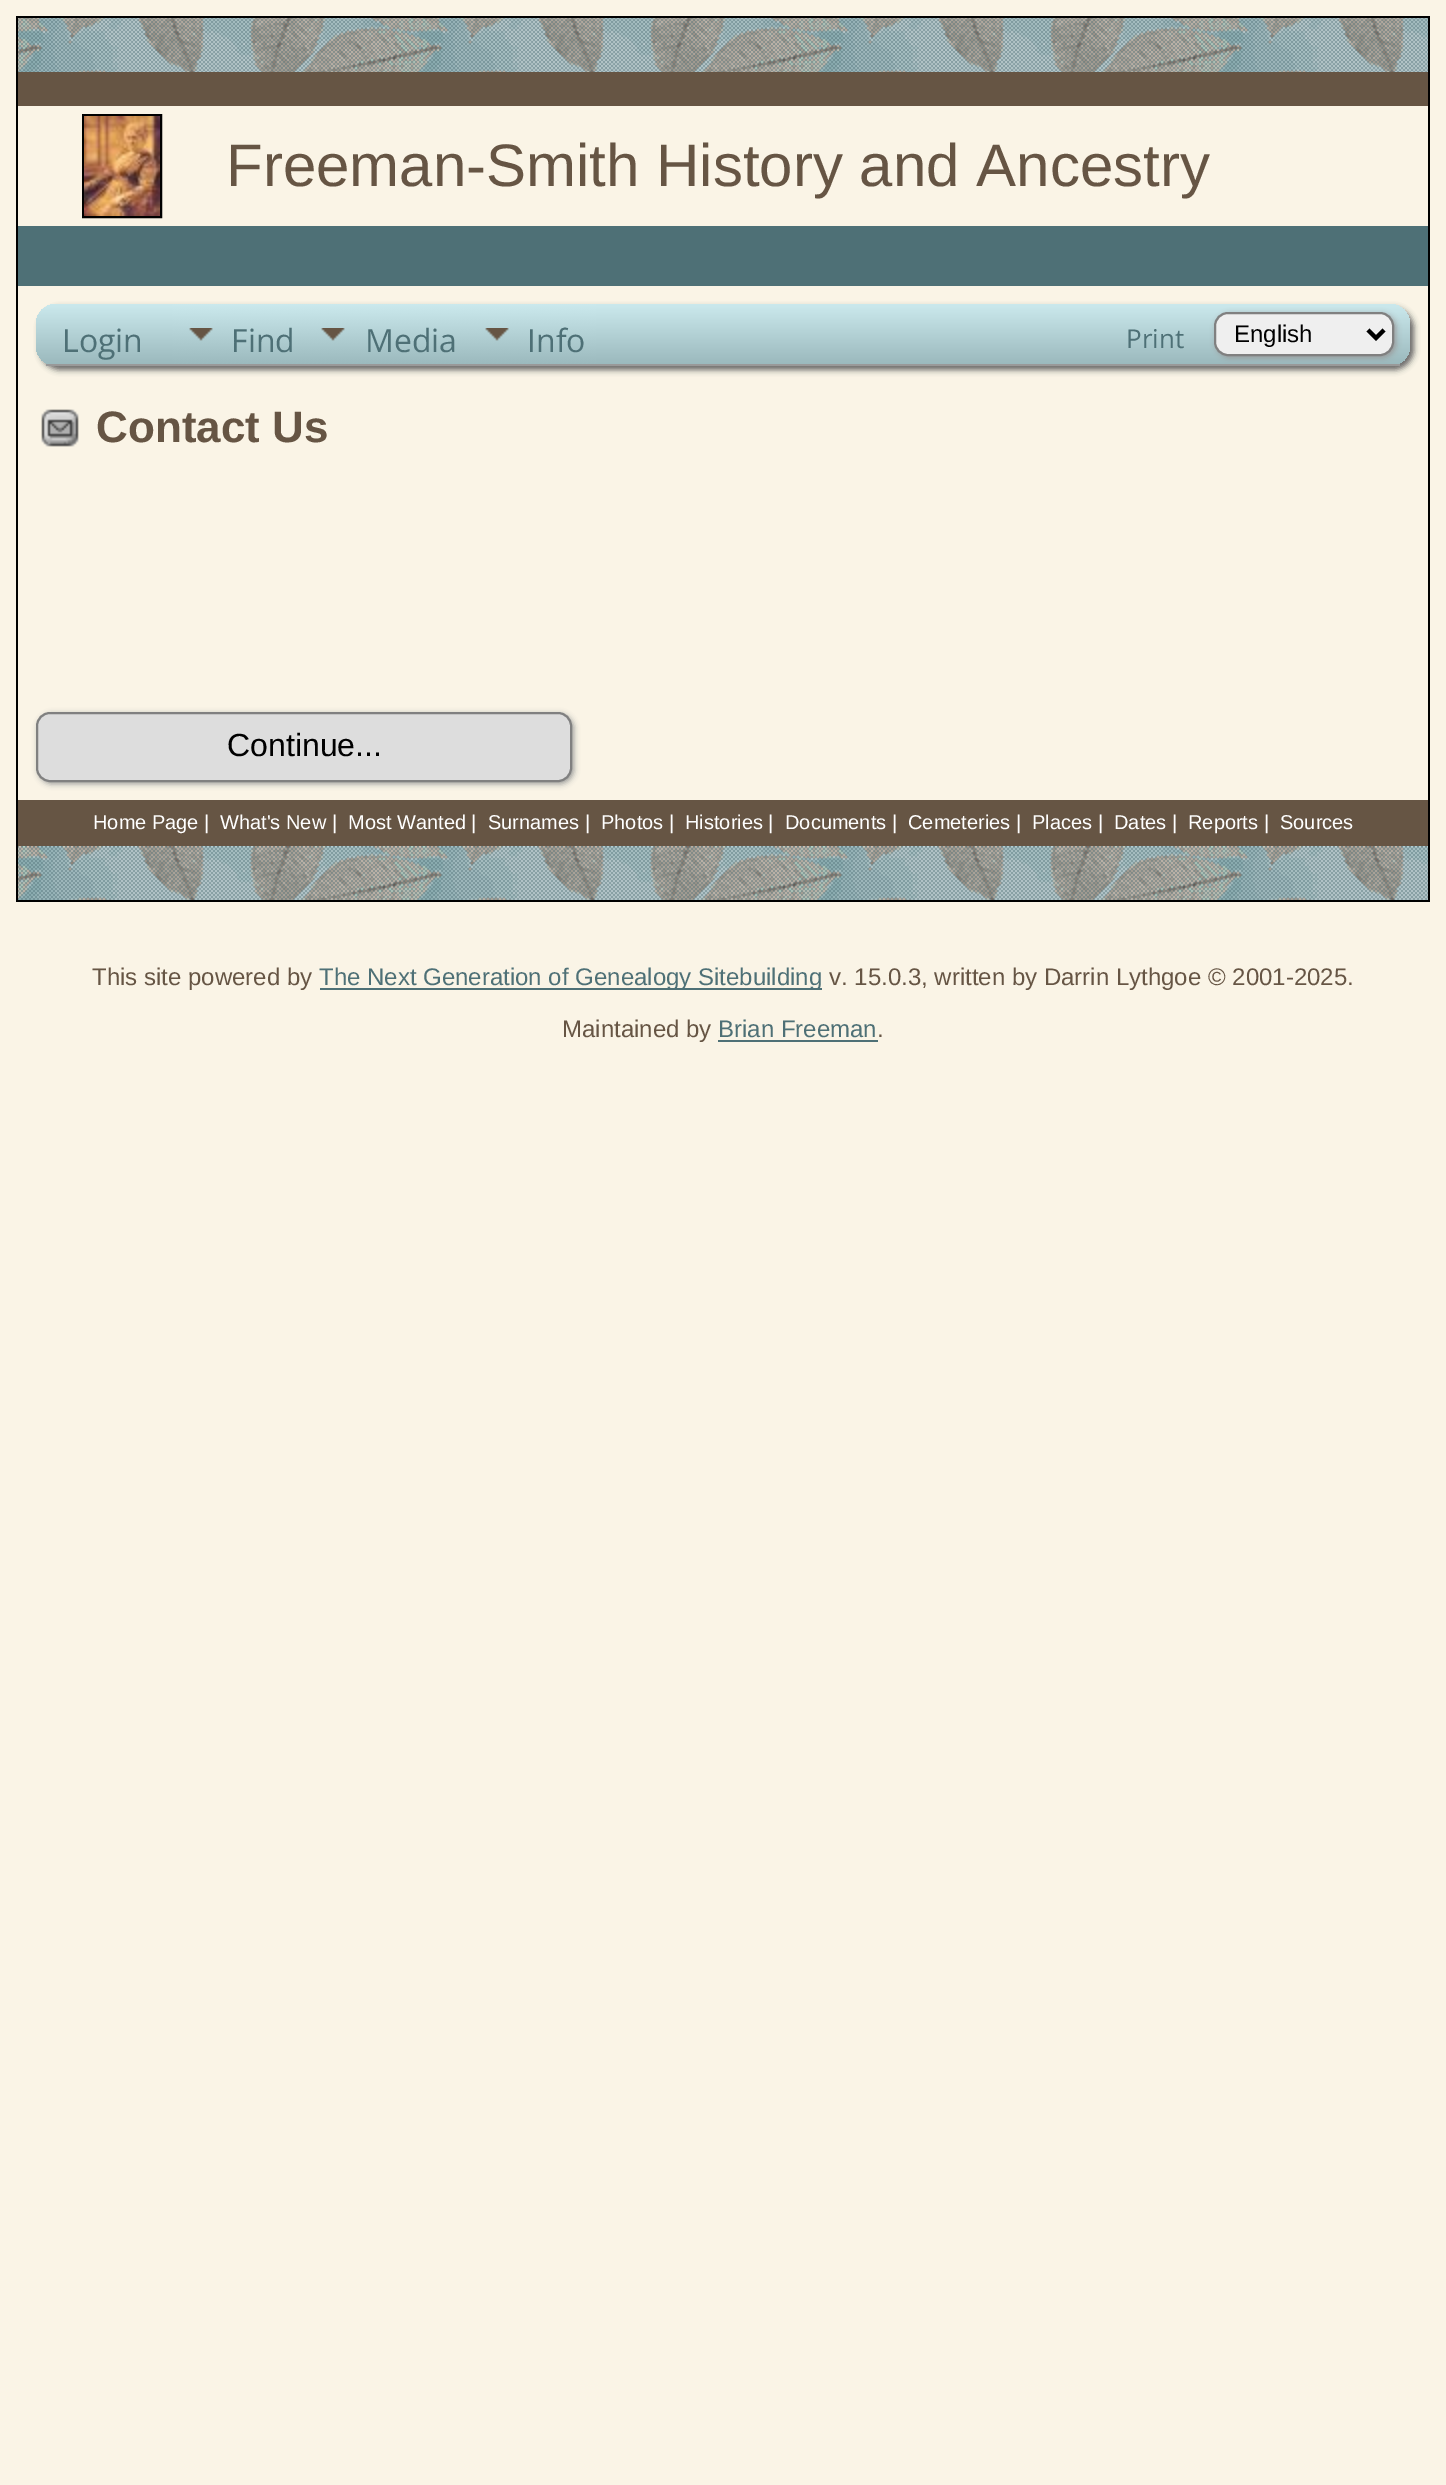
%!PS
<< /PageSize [1446 2485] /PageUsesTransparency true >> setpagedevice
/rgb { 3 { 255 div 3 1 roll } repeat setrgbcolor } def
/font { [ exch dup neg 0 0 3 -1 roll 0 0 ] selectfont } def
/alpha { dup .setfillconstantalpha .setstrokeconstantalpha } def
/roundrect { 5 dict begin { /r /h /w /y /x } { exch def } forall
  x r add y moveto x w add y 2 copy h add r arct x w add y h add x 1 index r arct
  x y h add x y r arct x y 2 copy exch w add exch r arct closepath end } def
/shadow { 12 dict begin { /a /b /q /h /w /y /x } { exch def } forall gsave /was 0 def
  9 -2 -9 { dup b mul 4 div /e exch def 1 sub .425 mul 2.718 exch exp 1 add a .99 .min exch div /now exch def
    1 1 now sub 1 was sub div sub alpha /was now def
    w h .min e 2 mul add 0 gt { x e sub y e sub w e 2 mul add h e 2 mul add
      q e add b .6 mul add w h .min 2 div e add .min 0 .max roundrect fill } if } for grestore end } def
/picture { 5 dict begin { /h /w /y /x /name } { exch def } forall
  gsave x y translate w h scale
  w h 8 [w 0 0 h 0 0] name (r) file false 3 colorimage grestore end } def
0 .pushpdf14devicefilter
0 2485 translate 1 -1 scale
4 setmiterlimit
250 244 230 rgb
0 0 1446 2485 rectfill
[
  [16 16 1414 2 0 0 0]
  [1428 16 2 886 0 0 0]
  [16 900 1414 2 0 0 0]
  [16 16 2 886 0 0 0]
] { aload pop rgb rectfill } forall
(img/1.rgb) 18 18 1410 54 picture
102 85 68 rgb
18 72 1410 34 rectfill
0 0 0 rgb
2 setlinewidth
83 115 78 102 rectstroke
(img/2.rgb) 84 116 76 100 picture
78 112 118 rgb
18 226 1410 60 rectfill
102 102 102 rgb
40 308 1374 62 20 3 1 shadow
180 209 214 rgb
36 304 1374 62 20 roundrect fill
gsave
36 304 1374 62 20 roundrect clip newpath
gsave 56 304 moveto 1390 304 lineto 1401 304 1410 313 1410 324 curveto 1410 364 lineto 36 364 lineto 36 324 lineto 36 313 45 304 56 304 curveto closepath clip newpath
<< /ShadingType 2 /ColorSpace /DeviceRGB /Coords [723 304 723 364] /Extend [true true] /Function << /FunctionType 2 /Domain [0 1] /C0 [0.796 0.914 0.929] /C1 [0.608 0.725 0.741] /N 1 >> >> shfill grestore
grestore
153 153 153 rgb
46 364 1354 2 rectfill
(img/3.rgb) 172 304 132 60 picture
(img/4.rgb) 304 304 164 60 picture
(img/5.rgb) 468 304 128 60 picture
1216 314 180 44 14 3 1 shadow
239 239 239 rgb
1215 313 178 42 13 roundrect gsave fill grestore
128 128 128 rgb
stroke
0 0 0 rgb
4 setlinewidth
1368 330 moveto 1376 338 lineto 1384 330 lineto stroke
(img/6.rgb) 41 409 38 38 picture
153 153 153 rgb
38 714 536 70 14 3 1 shadow
221 221 221 rgb
37 713 534 68 13 roundrect gsave fill grestore
128 128 128 rgb
2 setlinewidth
stroke
102 85 68 rgb
18 800 1410 46 rectfill
(img/7.rgb) 18 846 1410 54 picture
78 112 118 rgb
320 988 502 2 rectfill
718 1040 160 2 rectfill
/LiberationSans-Regular 60 font
102 85 68 rgb
226 186 moveto (Freeman-Smith History and Ancestry) show
/OpenSans-Regular 32 font
78 112 118 rgb
[
  [(Login) 62 352]
  [(Find) 231 352]
  [(Media) 365 352]
  [(Info) 527 352]
] { aload pop moveto show } forall
/OpenSans-Regular 26 font
1126 348 moveto (Print) show
/LiberationSans-Regular 24 font
0 0 0 rgb
1234 342 moveto (English) show
/LiberationSans-Bold 44 font
102 85 68 rgb
96 442 moveto (Contact Us) show
/LiberationSans-Regular 32 font
0 0 0 rgb
227 756 moveto (Continue...) show
/LiberationSans-Regular 20 font
255 255 255 rgb
[
  [(Home Page |) 93 829]
  [(What's New |) 220 829]
  [(Most Wanted |) 348 829]
  [(Surnames |) 488 829]
  [(Photos |) 601 829]
  [(Histories |) 685 829]
  [(Documents |) 785 829]
  [(Cemeteries |) 908 829]
  [(Places |) 1032 829]
  [(Dates |) 1114 829]
  [(Reports |) 1188 829]
  [(Sources) 1280 829]
] { aload pop moveto show } forall
/LiberationSans-Regular 24 font
102 85 68 rgb
92 985 moveto (This site powered by) show
78 112 118 rgb
319 985 moveto (The Next Generation of Genealogy Sitebuilding) show
102 85 68 rgb
829 985 moveto (v. 15.0.3, written by Darrin Lythgoe © 2001-2025.) show
562 1037 moveto (Maintained by) show
78 112 118 rgb
718 1037 moveto (Brian Freeman) show
102 85 68 rgb
877 1037 moveto (.) show
.poppdf14devicefilter showpage
